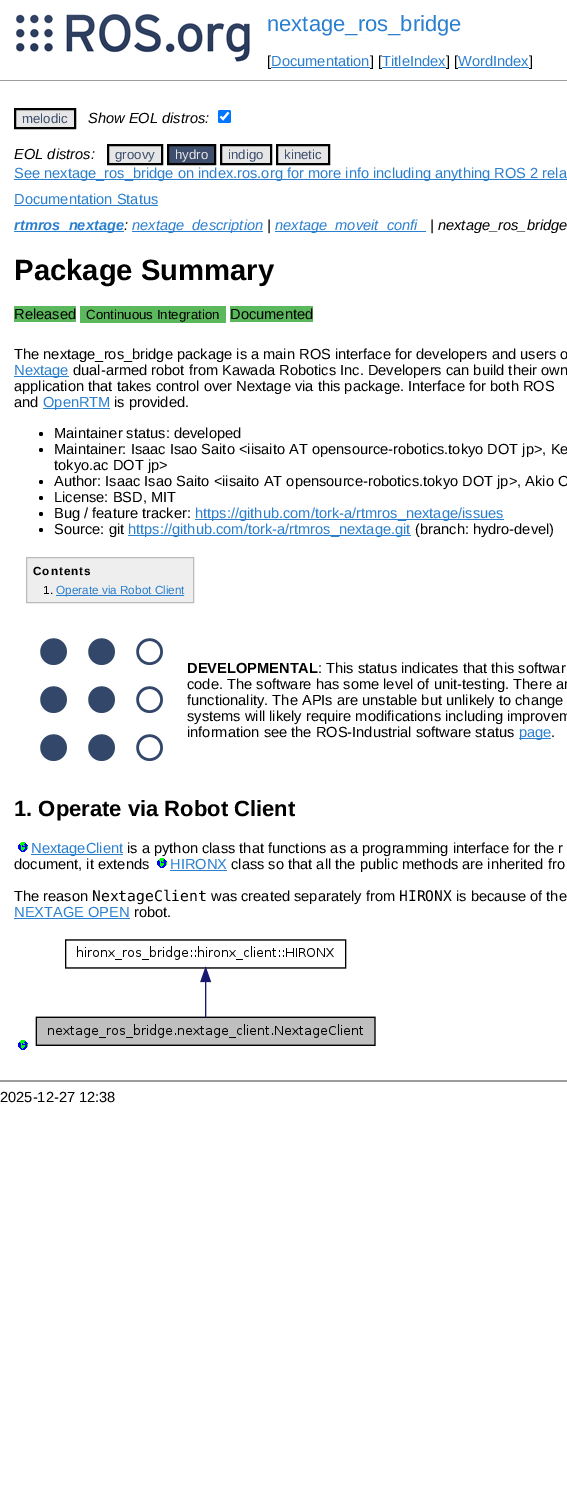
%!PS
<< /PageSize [567 1497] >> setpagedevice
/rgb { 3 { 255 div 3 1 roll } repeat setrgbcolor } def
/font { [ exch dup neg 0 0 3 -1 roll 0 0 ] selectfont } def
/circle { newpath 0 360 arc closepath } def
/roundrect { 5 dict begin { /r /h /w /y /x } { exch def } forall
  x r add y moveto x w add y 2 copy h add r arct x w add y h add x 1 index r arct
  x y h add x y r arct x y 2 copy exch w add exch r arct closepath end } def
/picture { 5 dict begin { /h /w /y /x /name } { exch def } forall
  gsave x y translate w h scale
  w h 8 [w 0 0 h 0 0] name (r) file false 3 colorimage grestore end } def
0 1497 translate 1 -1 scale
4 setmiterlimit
255 255 255 rgb
0 0 567 1497 rectfill
(img/1.rgb) 16 14 234 48 picture
43 127 207 rgb
458 67 71 1 rectfill
156 156 156 rgb
0 80 567 1 rectfill
230 230 230 rgb
15 109 moveto 75 109 lineto 75 128 lineto 15 128 lineto closepath gsave fill grestore
0 0 0 rgb
2 setlinewidth
stroke
0 117 255 rgb
218 110 13 13 2 roundrect fill
255 255 255 rgb
2.1 setlinewidth
220.5 116.5 moveto 223 119 lineto 228.5 112.5 lineto stroke
230 230 230 rgb
108 145 moveto 162 145 lineto 162 164 lineto 108 164 lineto closepath gsave fill grestore
0 0 0 rgb
2 setlinewidth
stroke
62 79 110 rgb
168 145 moveto 215 145 lineto 215 164 lineto 168 164 lineto closepath gsave fill grestore
0 0 0 rgb
stroke
230 230 230 rgb
221 145 moveto 271 145 lineto 271 164 lineto 221 164 lineto closepath gsave fill grestore
0 0 0 rgb
stroke
230 230 230 rgb
277 145 moveto 329 145 lineto 329 164 lineto 277 164 lineto closepath gsave fill grestore
0 0 0 rgb
stroke
[
  [14 179 553 1 43 127 207]
  [14 205 144 1 43 127 207]
  [14 231 110 1 43 127 207]
  [132 231 131 1 43 127 207]
  [275 231 151 1 43 127 207]
  [14 306 62 16 92 184 92]
  [80 306 146 17 92 184 92]
  [230 306 83 16 92 184 92]
  [14 376 55 1 43 127 207]
  [43 408 67 1 43 127 207]
] { aload pop rgb rectfill } forall
0 0 0 rgb
41 434 2 circle fill
41 450 2 circle fill
41 482 2 circle fill
41 498 2 circle fill
41 514 2 circle fill
43 127 207 rgb
195 519 309 1 rectfill
0 0 0 rgb
41 530 2 circle fill
43 127 207 rgb
128 535 283 1 rectfill
238 238 238 rgb
26.5 557.5 moveto 193.5 557.5 lineto 193.5 602.5 lineto 26.5 602.5 lineto closepath gsave fill grestore
187 187 187 rgb
1 setlinewidth
stroke
43 127 207 rgb
56 595 128 1 rectfill
(img/2.rgb) 40 638 123 123 picture
519 738 32 1 rectfill
(img/3.rgb) 18 842 10 10 picture
31 854 92 1 rectfill
(img/3.rgb) 157 858 10 10 picture
170 870 57 1 rectfill
14 918 116 1 rectfill
(img/3.rgb) 18 1040 10 10 picture
(img/4.rgb) 35 939 341 107 picture
156 156 156 rgb
0 1080 567 2 rectfill
/LiberationSans-Regular 22 font
43 127 207 rgb
267 31 moveto (nextage_ros_bridge) show
/LiberationSans-Regular 14.65 font
0 0 0 rgb
267 66 moveto ([) show
43 127 207 rgb
271 66 moveto (Documentation) show
271 67 99 1 rectfill
0 0 0 rgb
370 66 moveto (] [) show
43 127 207 rgb
382 66 moveto (TitleIndex) show
382 67 64 1 rectfill
0 0 0 rgb
446 66 moveto (] [) show
43 127 207 rgb
458 66 moveto (WordIndex) show
0 0 0 rgb
529 66 moveto (]) show
/LiberationSans-Regular 13.25 font
62 79 110 rgb
22 123 moveto (melodic) show
/LiberationSans-Italic 14.65 font
0 0 0 rgb
88 123 moveto (Show EOL distros:) show
14 159 moveto (EOL distros:) show
/LiberationSans-Regular 13.25 font
62 79 110 rgb
115 159 moveto (groovy) show
230 230 230 rgb
175 159 moveto (hydro) show
62 79 110 rgb
228 159 moveto (indigo) show
284 159 moveto (kinetic) show
/LiberationSans-Regular 14.65 font
43 127 207 rgb
14 178 moveto (See nextage_ros_bridge on index.ros.org for more info including anything ROS 2 rela) show
14 204 moveto (Documentation Status) show
/LiberationSans-BoldItalic 14.65 font
14 230 moveto (rtmros_nextage) show
/LiberationSans-Italic 14.65 font
0 0 0 rgb
124 230 moveto (:) show
43 127 207 rgb
132 230 moveto (nextage_description) show
0 0 0 rgb
267 230 moveto (|) show
43 127 207 rgb
275 230 moveto (nextage_moveit_confi) show
0 0 0 rgb
430 230 moveto (| nextage_ros_bridge) show
/LiberationSans-Bold 29.25 font
14 280 moveto (Package Summary) show
/LiberationSans-Regular 14.65 font
14 319 moveto (Released) show
/LiberationSans-Regular 13.25 font
86 319 moveto (Continuous Integration) show
/LiberationSans-Regular 14.65 font
230 319 moveto (Documented) show
14 359 moveto (The nextage_ros_bridge package is a main ROS interface for developers and users o) show
43 127 207 rgb
14 375 moveto (Nextage) show
0 0 0 rgb
[
  [(dual-armed robot from Kawada Robotics Inc. Developers can build their own) 73 375]
  [(application that takes control over Nextage via this package. Interface for both ROS) 14 391]
  [(and) 14 407]
] { aload pop moveto show } forall
43 127 207 rgb
43 407 moveto (OpenRTM) show
0 0 0 rgb
[
  [(is provided.) 114 407]
  [(Maintainer status: developed) 54 438]
  [(Maintainer: Isaac Isao Saito <iisaito AT opensource-robotics.tokyo DOT jp>, Ke) 54 454]
  [(tokyo.ac DOT jp>) 54 470]
  [(Author: Isaac Isao Saito <iisaito AT opensource-robotics.tokyo DOT jp>, Akio O) 54 486]
  [(License: BSD, MIT) 54 502]
  [(Bug / feature tracker:) 54 518]
] { aload pop moveto show } forall
43 127 207 rgb
195 518 moveto (https://github.com/tork-a/rtmros_nextage/issues) show
0 0 0 rgb
54 534 moveto (Source: git) show
43 127 207 rgb
128 534 moveto (https://github.com/tork-a/rtmros_nextage.git) show
0 0 0 rgb
415 534 moveto (\(branch: hydro-devel\)) show
/LiberationSans-Bold 11.75 font
33 575 moveto 1 0 (Contents) ashow
/LiberationSans-Regular 11.75 font
43 594 moveto (1.) show
43 127 207 rgb
56 594 moveto (Operate via Robot Client) show
/LiberationSans-Bold 14.65 font
0 0 0 rgb
187 673 moveto (DEVELOPMENTAL) show
/LiberationSans-Regular 14.65 font
[
  [(: This status indicates that this softwar) 318 673]
  [(code. The software has some level of unit-testing. There ar) 187 689]
  [(functionality. The APIs are unstable but unlikely to change) 187 705]
  [(systems will likely require modifications including improvem) 187 721]
  [(information see the ROS-Industrial software status) 187 737]
] { aload pop moveto show } forall
43 127 207 rgb
519 737 moveto (page) show
0 0 0 rgb
551 737 moveto (.) show
/LiberationSans-Bold 22 font
14 816 moveto (1. Operate via Robot Client) show
/LiberationSans-Regular 14.65 font
43 127 207 rgb
31 853 moveto (NextageClient) show
0 0 0 rgb
127 853 moveto (is a python class that functions as a programming interface for the r) show
14 869 moveto (document, it extends) show
43 127 207 rgb
170 869 moveto (HIRONX) show
0 0 0 rgb
231 869 moveto (class so that all the public methods are inherited fro) show
14 901 moveto (The reason) show
/DejaVuSansMono-Regular 14.65 font
92 901 moveto (NextageClient) show
/LiberationSans-Regular 14.65 font
211 901 moveto (was created separately from) show
/DejaVuSansMono-Regular 14.65 font
399 901 moveto (HIRONX) show
/LiberationSans-Regular 14.65 font
456 901 moveto (is because of the) show
43 127 207 rgb
14 917 moveto (NEXTAGE OPEN) show
0 0 0 rgb
134 917 moveto (robot.) show
0 1102 moveto (2025-12-27 12:38) show
showpage
